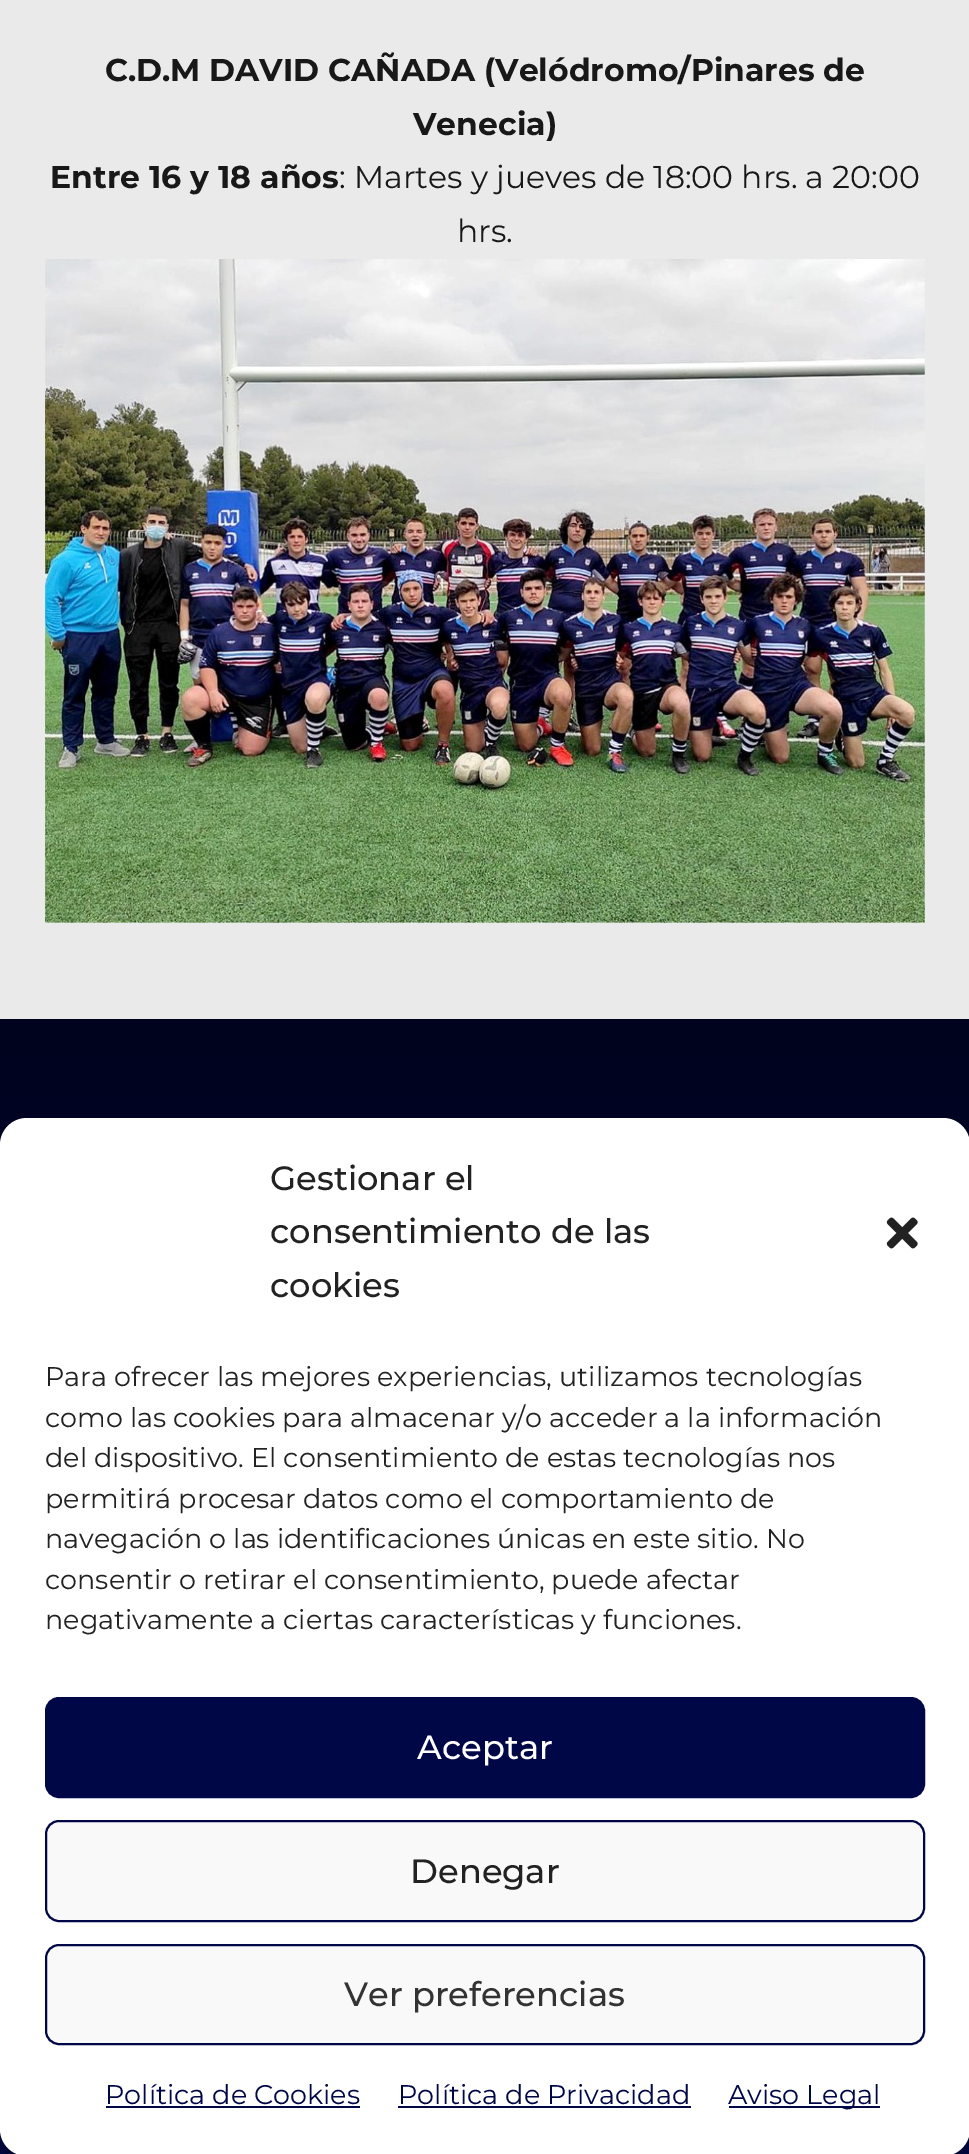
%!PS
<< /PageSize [969 2154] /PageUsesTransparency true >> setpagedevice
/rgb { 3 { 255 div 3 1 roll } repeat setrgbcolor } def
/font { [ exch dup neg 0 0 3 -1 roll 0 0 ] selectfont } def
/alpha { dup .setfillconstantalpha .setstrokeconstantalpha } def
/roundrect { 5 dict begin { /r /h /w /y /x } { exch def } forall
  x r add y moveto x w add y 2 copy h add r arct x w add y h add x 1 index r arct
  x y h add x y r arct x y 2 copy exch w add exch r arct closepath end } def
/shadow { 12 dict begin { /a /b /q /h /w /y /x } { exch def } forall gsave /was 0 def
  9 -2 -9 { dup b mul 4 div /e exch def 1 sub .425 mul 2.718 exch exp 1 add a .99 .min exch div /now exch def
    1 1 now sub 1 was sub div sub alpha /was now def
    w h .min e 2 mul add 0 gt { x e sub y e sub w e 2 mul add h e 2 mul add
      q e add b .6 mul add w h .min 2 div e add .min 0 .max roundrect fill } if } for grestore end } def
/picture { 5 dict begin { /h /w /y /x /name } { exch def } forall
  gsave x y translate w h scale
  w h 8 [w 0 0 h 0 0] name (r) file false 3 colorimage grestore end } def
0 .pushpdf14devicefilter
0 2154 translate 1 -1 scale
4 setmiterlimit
234 234 234 rgb
0 0 969 2154 rectfill
(img/1.rgb) 45 259 880 664 picture
gsave 0 1019 moveto 969 1019 lineto 969 2154 lineto 0 2154 lineto closepath clip newpath
<< /ShadingType 2 /ColorSpace /DeviceRGB /Coords [485 1019 485 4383] /Extend [true true] /Function << /FunctionType 3 /Domain [0 1] /Functions [<< /FunctionType 2 /Domain [0 1] /C0 [0 0.012 0.114] /C1 [0 0.027 0.282] /N 1 >> << /FunctionType 2 /Domain [0 1] /C0 [0 0.027 0.282] /C1 [0 0.027 0.282] /N 1 >> << /FunctionType 2 /Domain [0 1] /C0 [0 0.027 0.282] /C1 [0 0.012 0.114] /N 1 >>] /Bounds [0.25 0.75] /Encode [0 1 0 1 0 1] >> >> shfill grestore
0 0 0 rgb
0 1132 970 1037 27 7 0.23 shadow
0 1141 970 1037 27 22.5 0.19 shadow
255 255 255 rgb
0 1118 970 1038 27 roundrect fill
(img/2.rgb) 886 1217 32 32 picture
0 7 71 rgb
46 1698 878 99 13 roundrect gsave fill grestore
2 setlinewidth
stroke
249 249 249 rgb
46 1821 878 100 13 roundrect gsave fill grestore
0 7 71 rgb
stroke
249 249 249 rgb
46 1945 878 99 13 roundrect gsave fill grestore
0 7 71 rgb
stroke
[
  [106 2106 254 2 0 7 71]
  [398 2106 293 2 0 7 71]
  [729 2106 151 2 0 7 71]
] { aload pop rgb rectfill } forall
/Montserrat-Bold 31.5 font
24 24 24 rgb
[
  [(C.D.M DAVID CAÑADA \(Velódromo/Pinares de) 105 81]
  [(Venecia\)) 413 135]
  [(Entre 16 y 18 años) 50 188]
] { aload pop moveto show } forall
/Montserrat-Regular 31.5 font
339 188 moveto (: Martes y jueves de 18:00 hrs. a 20:00) show
457 242 moveto (hrs.) show
/Montserrat-Medium 33.75 font
34 34 34 rgb
[
  [(Gestionar el) 270 1190]
  [(consentimiento de las) 270 1243]
  [(cookies) 270 1297]
] { aload pop moveto show } forall
/Montserrat-Regular 27 font
[
  [(Para ofrecer las mejores experiencias, utilizamos tecnologías) 45 1386]
  [(como las cookies para almacenar y/o acceder a la información) 45 1427]
  [(del dispositivo. El consentimiento de estas tecnologías nos) 45 1467]
  [(permitirá procesar datos como el comportamiento de) 45 1508]
  [(navegación o las identificaciones únicas en este sitio. No) 45 1548]
  [(consentir o retirar el consentimiento, puede afectar) 45 1589]
  [(negativamente a ciertas características y funciones.) 45 1629]
] { aload pop moveto show } forall
/Montserrat-Medium 33.75 font
255 255 255 rgb
417 1759 moveto (Aceptar) show
34 34 34 rgb
410 1883 moveto (Denegar) show
51 51 51 rgb
344 2006 moveto (Ver preferencias) show
/Montserrat-Regular 27 font
0 7 71 rgb
[
  [(Política de Cookies) 105 2104]
  [(Política de Privacidad) 398 2104]
  [(Aviso Legal) 728 2104]
] { aload pop moveto show } forall
.poppdf14devicefilter showpage
